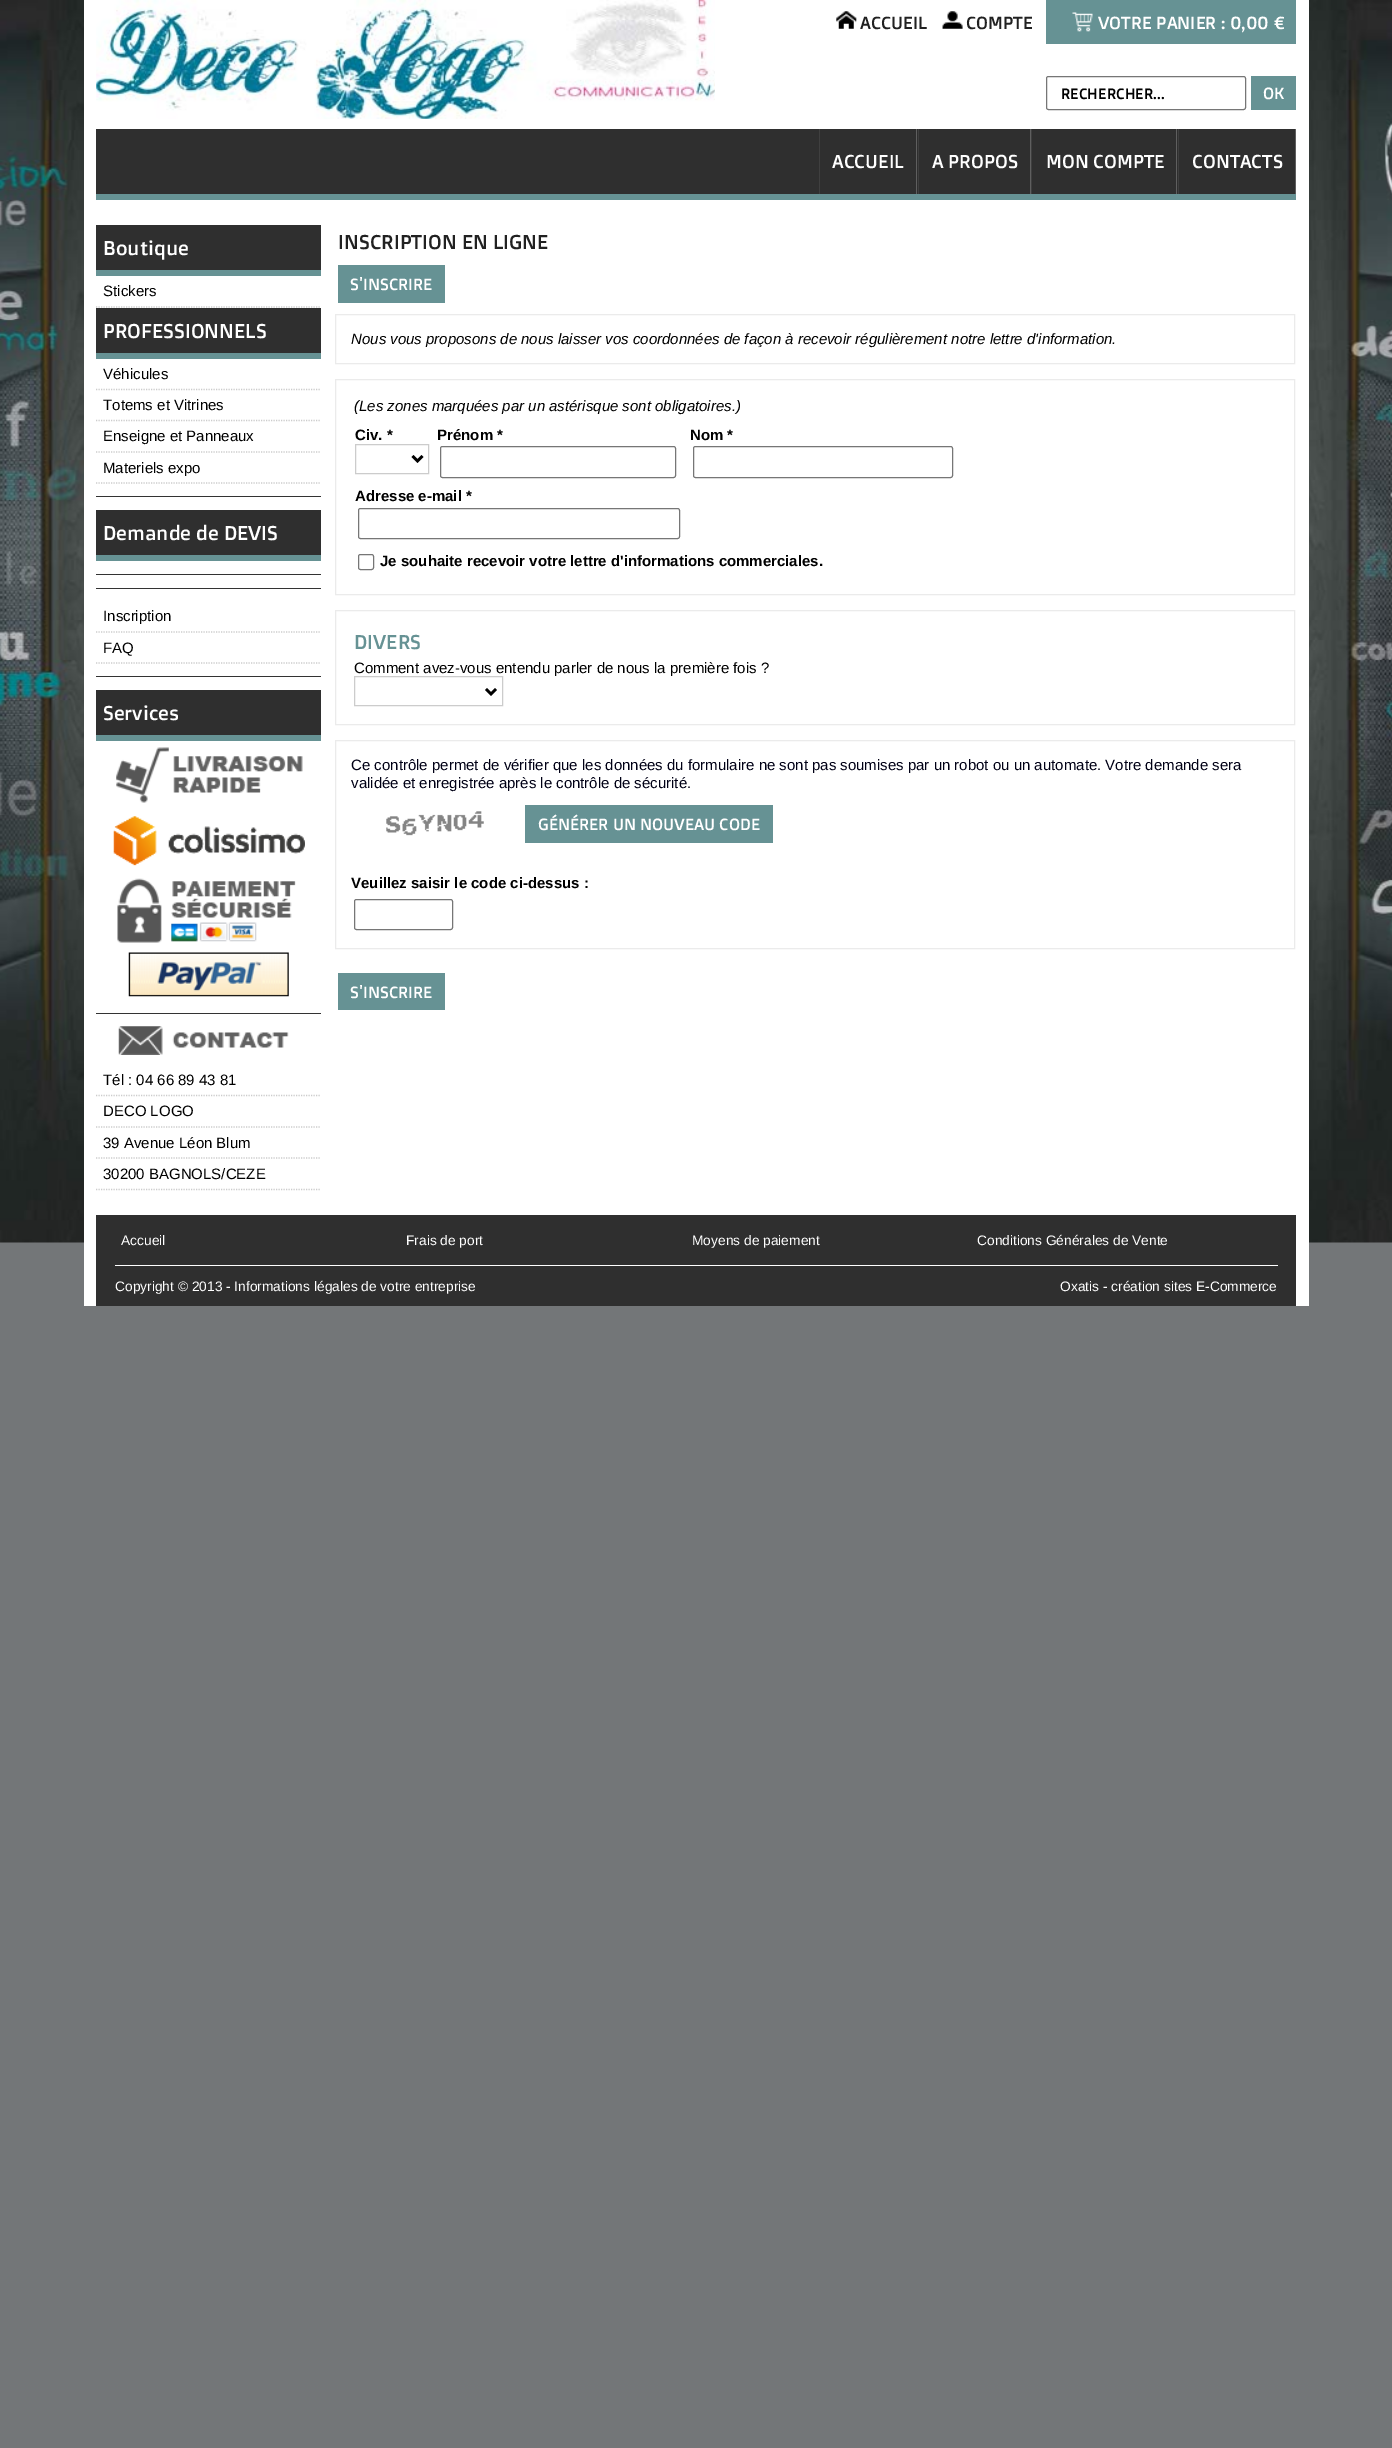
%!PS
<< /PageSize [1392 2448] >> setpagedevice
/rgb { 3 { 255 div 3 1 roll } repeat setrgbcolor } def
/font { [ exch dup neg 0 0 3 -1 roll 0 0 ] selectfont } def
/roundrect { 5 dict begin { /r /h /w /y /x } { exch def } forall
  x r add y moveto x w add y 2 copy h add r arct x w add y h add x 1 index r arct
  x y h add x y r arct x y 2 copy exch w add exch r arct closepath end } def
/picture { 5 dict begin { /h /w /y /x /name } { exch def } forall
  gsave x y translate w h scale
  w h 8 [w 0 0 h 0 0] name (r) file false 3 colorimage grestore end } def
0 2448 translate 1 -1 scale
4 setmiterlimit
115 118 120 rgb
0 0 1392 2448 rectfill
(img/1.rgb) 0 0 1392 1243 picture
255 255 255 rgb
84 0 1225 1306 rectfill
(img/2.rgb) 96 0 619 119 picture
(img/3.rgb) 836 11 21 18 picture
(img/4.rgb) 942 11 21 18 picture
102 146 148 rgb
1046 0 250 44 rectfill
(img/5.rgb) 1072 12 21 20 picture
118 118 118 rgb
1046.5 76.5 199 33 2 roundrect stroke
[
  [1251 76 45 34 102 146 148]
  [96 129 1199 65 47 47 47]
  [96 194 1200 6 102 146 148]
  [916 129 1 65 95 95 95]
  [819 129 1 65 63 63 63]
  [1030 129 1 65 95 95 95]
  [918 129 1 65 63 63 63]
  [1176 129 1 65 95 95 95]
  [1031 129 1 65 63 63 63]
  [1295 129 1 65 95 95 95]
  [1178 129 1 65 63 63 63]
  [96 225 225 45 47 47 47]
  [96 270 225 6 102 146 148]
] { aload pop rgb rectfill } forall
204 204 204 rgb
1.2 setlinewidth
[1.25 1.25] 0 setdash
96 307 moveto 321 307 lineto stroke
47 47 47 rgb
96 308 225 45 rectfill
102 146 148 rgb
96 353 225 6 rectfill
204 204 204 rgb
96 389.5 moveto 321 389.5 lineto stroke
96 420.5 moveto 321 420.5 lineto stroke
96 452 moveto 321 452 lineto stroke
96 483 moveto 321 483 lineto stroke
[
  [96 496 225 1 51 51 51]
  [96 510 225 45 47 47 47]
  [96 555 225 6 102 146 148]
  [96 574 225 1 51 51 51]
  [96 588 225 1 51 51 51]
] { aload pop rgb rectfill } forall
204 204 204 rgb
96 632 moveto 321 632 lineto stroke
96 663 moveto 321 663 lineto stroke
[
  [96 676 225 1 51 51 51]
  [96 690 225 45 47 47 47]
  [96 735 225 6 102 146 148]
] { aload pop rgb rectfill } forall
(img/6.rgb) 116 747 187 56 picture
(img/7.rgb) 113 816 192 50 picture
(img/8.rgb) 117 878 179 65 picture
(img/9.rgb) 128 952 161 45 picture
51 51 51 rgb
96 1013 225 1 rectfill
(img/10.rgb) 118 1026 171 29 picture
204 204 204 rgb
96 1095.5 moveto 321 1095.5 lineto stroke
96 1127 moveto 321 1127 lineto stroke
96 1158 moveto 321 1158 lineto stroke
96 1189.5 moveto 321 1189.5 lineto stroke
102 146 148 rgb
338 265 107 38 rectfill
235 235 235 rgb
1 setlinewidth
[] 0 setdash
335.5 314.5 959 49 rectstroke
335.5 379.5 959 215 rectstroke
204 204 204 rgb
355.5 444.5 73 29 rectstroke
0 0 0 rgb
2.5 setlinewidth
412.5 456 moveto 417.5 461 lineto 422.5 456 lineto stroke
118 118 118 rgb
1 setlinewidth
440.5 446.5 235 31 2 roundrect stroke
693.5 446.5 259 31 2 roundrect stroke
358.5 508.5 321 30 2 roundrect stroke
358.5 554.5 15 15 2 roundrect stroke
235 235 235 rgb
335.5 610.5 959 114 rectstroke
335.5 740.5 959 208 rectstroke
(img/11.rgb) 386 811 98 25 picture
102 146 148 rgb
525 805 248 38 rectfill
118 118 118 rgb
354.5 899.5 98 30 2 roundrect stroke
[
  [338 973 107 37 102 146 148]
  [96 1215 1200 91 47 47 47]
  [115 1265 1163 1 255 255 255]
] { aload pop rgb rectfill } forall
/DoppioOne-Regular 17.5 font
33 33 33 rgb
860 29 moveto (ACCUEIL) show
966 29 moveto (COMPTE) show
255 255 255 rgb
1098 29 moveto (VOTRE PANIER : 0,00 €) show
/DoppioOne-Regular 15 font
0 0 0 rgb
1061 99 moveto (RECHERCHER...) show
/DoppioOne-Regular 16.25 font
255 255 255 rgb
1263 99 moveto (OK) show
/DoppioOne-Regular 18.75 font
[
  [(ACCUEIL) 832 168]
  [(A PROPOS) 932 168]
  [(MON COMPTE) 1046 168]
  [(CONTACTS) 1192 168]
] { aload pop moveto show } forall
/DoppioOne-Regular 20 font
103 255 moveto (Boutique) show
/LiberationSans-Regular 15 font
0 0 0 rgb
103 296 moveto (Stickers) show
/DoppioOne-Regular 20 font
255 255 255 rgb
103 338 moveto (PROFESSIONNELS) show
/LiberationSans-Regular 15 font
0 0 0 rgb
[
  [(Véhicules) 103 379]
  [(Totems et Vitrines) 103 410]
  [(Enseigne et Panneaux) 103 441]
  [(Materiels expo) 103 473]
] { aload pop moveto show } forall
/DoppioOne-Regular 20 font
255 255 255 rgb
103 540 moveto (Demande de DEVIS) show
/LiberationSans-Regular 15 font
0 0 0 rgb
103 621 moveto (Inscription) show
103 653 moveto (FAQ) show
/DoppioOne-Regular 20 font
255 255 255 rgb
103 720 moveto (Services) show
/LiberationSans-Regular 15 font
0 0 0 rgb
[
  [(Tél : 04 66 89 43 81) 103 1085]
  [(DECO LOGO) 103 1116]
  [(39 Avenue Léon Blum) 103 1148]
  [(30200 BAGNOLS/CEZE) 103 1179]
] { aload pop moveto show } forall
/DoppioOne-Regular 20 font
33 33 33 rgb
338 249 moveto (INSCRIPTION EN LIGNE) show
/DoppioOne-Regular 16.25 font
255 255 255 rgb
350 290 moveto (S'INSCRIRE) show
/LiberationSans-Italic 15 font
0 0 0 rgb
351 344 moveto (Nous vous proposons de nous laisser vos coordonnées de façon à recevoir régulièrement notre lettre d'information.) show
354 411 moveto (\(Les zones marquées par un astérisque sont obligatoires.\)) show
/LiberationSans-Bold 15 font
[
  [(Civ. *) 355 440]
  [(Prénom *) 437 440]
  [(Nom *) 690 440]
  [(Adresse e-mail *) 355 501]
  [(Je souhaite recevoir votre lettre d'informations commerciales.) 380 566]
] { aload pop moveto show } forall
/DoppioOne-Regular 20 font
102 146 148 rgb
354 649 moveto (DIVERS) show
/LiberationSans-Regular 15 font
0 0 0 rgb
354 673 moveto (Comment avez-vous entendu parler de nous la première fois ?) show
204 204 204 rgb
354.5 676.5 148 29 rectstroke
0 0 0 rgb
2.5 setlinewidth
486 689 moveto 491 694 lineto 496 689 lineto stroke
0 0 21 rgb
351 770 moveto (Ce contrôle permet de vérifier que les données du formulaire ne sont pas soumises par un robot ou un automate. Votre demande sera) show
351 788 moveto (validée et enregistrée après le contrôle de sécurité.) show
/DoppioOne-Regular 16.25 font
255 255 255 rgb
538 830 moveto (GÉNÉRER UN NOUVEAU CODE) show
/LiberationSans-Bold 15 font
0 0 0 rgb
351 888 moveto (Veuillez saisir le code ci-dessus :) show
/DoppioOne-Regular 16.25 font
255 255 255 rgb
350 998 moveto (S'INSCRIRE) show
/LiberationSans-Regular 13.75 font
[
  [(Accueil) 121 1245]
  [(Frais de port) 406 1245]
  [(Moyens de paiement) 692 1245]
  [(Conditions Générales de Vente) 977 1245]
  [(Copyright © 2013 - Informations légales de votre entreprise) 115 1291]
  [(Oxatis - création sites E-Commerce) 1060 1291]
] { aload pop moveto show } forall
showpage
